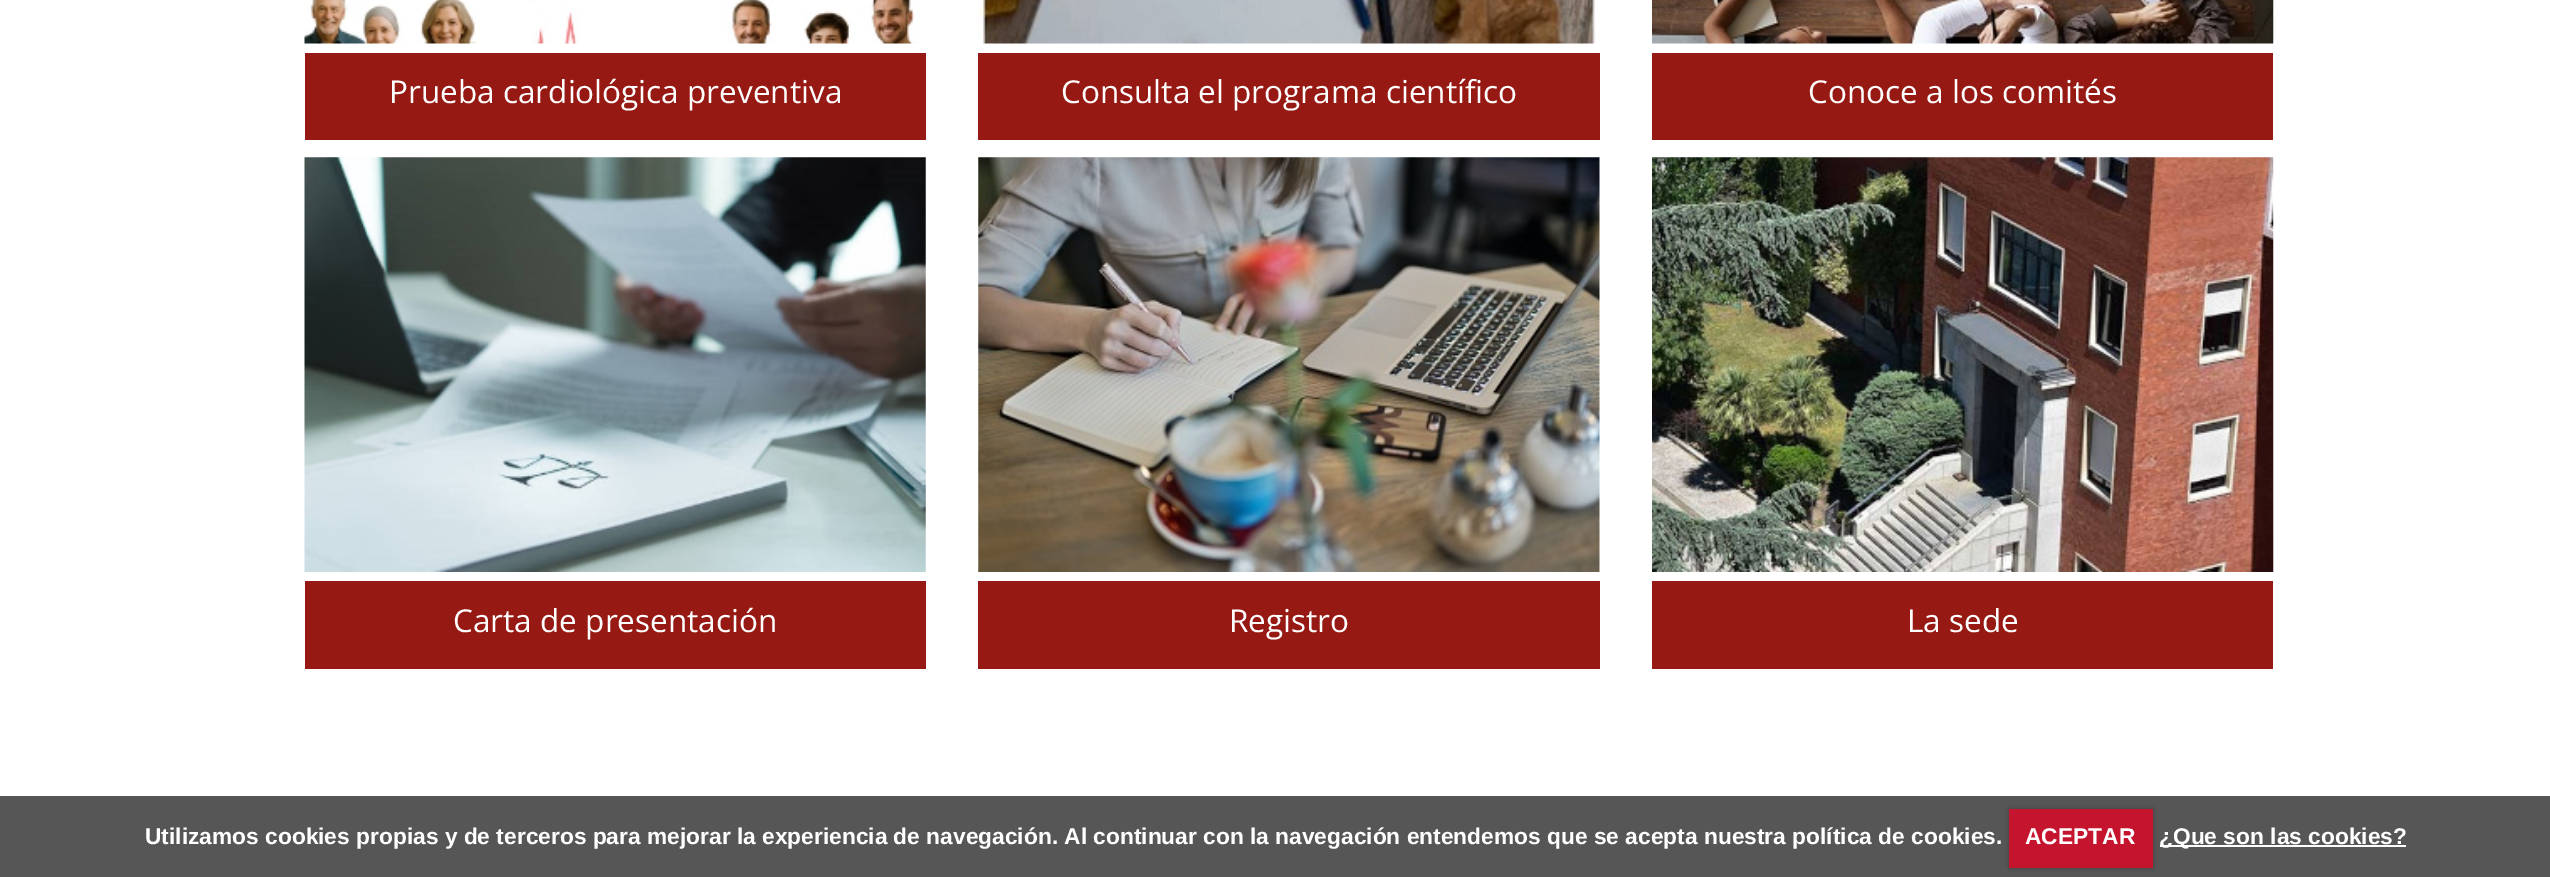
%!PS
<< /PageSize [2550 877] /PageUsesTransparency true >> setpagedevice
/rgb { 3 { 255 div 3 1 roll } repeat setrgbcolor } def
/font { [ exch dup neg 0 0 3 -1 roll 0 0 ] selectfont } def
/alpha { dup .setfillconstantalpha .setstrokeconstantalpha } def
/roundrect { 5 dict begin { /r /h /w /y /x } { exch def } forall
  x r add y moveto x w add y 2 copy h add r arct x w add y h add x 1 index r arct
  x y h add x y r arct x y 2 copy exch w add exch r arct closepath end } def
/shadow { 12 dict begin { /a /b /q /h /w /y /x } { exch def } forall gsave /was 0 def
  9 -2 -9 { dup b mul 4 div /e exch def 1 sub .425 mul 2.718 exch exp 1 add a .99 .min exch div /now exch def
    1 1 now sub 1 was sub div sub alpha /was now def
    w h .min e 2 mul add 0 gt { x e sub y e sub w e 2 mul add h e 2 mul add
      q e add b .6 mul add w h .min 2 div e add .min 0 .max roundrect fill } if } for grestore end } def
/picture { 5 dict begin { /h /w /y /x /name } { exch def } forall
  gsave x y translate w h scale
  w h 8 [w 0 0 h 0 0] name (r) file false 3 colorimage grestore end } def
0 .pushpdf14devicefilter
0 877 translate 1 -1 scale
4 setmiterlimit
255 255 255 rgb
0 0 2550 877 rectfill
(img/1.rgb) 304 0 618 44 picture
151 25 19 rgb
305 53 621 87 rectfill
(img/2.rgb) 978 0 618 44 picture
978 53 622 87 rectfill
(img/3.rgb) 1652 0 622 44 picture
1652 53 621 87 rectfill
(img/4.rgb) 304 157 622 415 picture
305 581 621 88 rectfill
(img/5.rgb) 978 157 622 415 picture
978 581 622 88 rectfill
(img/6.rgb) 1652 157 622 415 picture
1652 581 621 88 rectfill
86 86 86 rgb
0 796 2550 81 rectfill
0 0 0 rgb
2009 809 144 59 0 2 0.25 shadow
197 20 46 rgb
2009 809 144 59 rectfill
255 255 255 rgb
2160 845 246 2 rectfill
/OpenSans-Regular 31.5 font
[
  [(Prueba cardiológica preventiva) 389 103]
  [(Consulta el programa científico) 1061 103]
  [(Conoce a los comités) 1808 103]
  [(Carta de presentación) 453 632]
  [(Registro) 1229 632]
  [(La sede) 1907 632]
] { aload pop moveto show } forall
/LiberationSans-Bold 22.75 font
[
  [(Utilizamos cookies propias y de terceros para mejorar la experiencia de navegación. Al continuar con la navegación entendemos que se acepta nuestra política de cookies.) 145 844]
  [(ACEPTAR) 2025 844]
  [(¿Que son las cookies?) 2159 844]
] { aload pop moveto show } forall
.poppdf14devicefilter showpage
